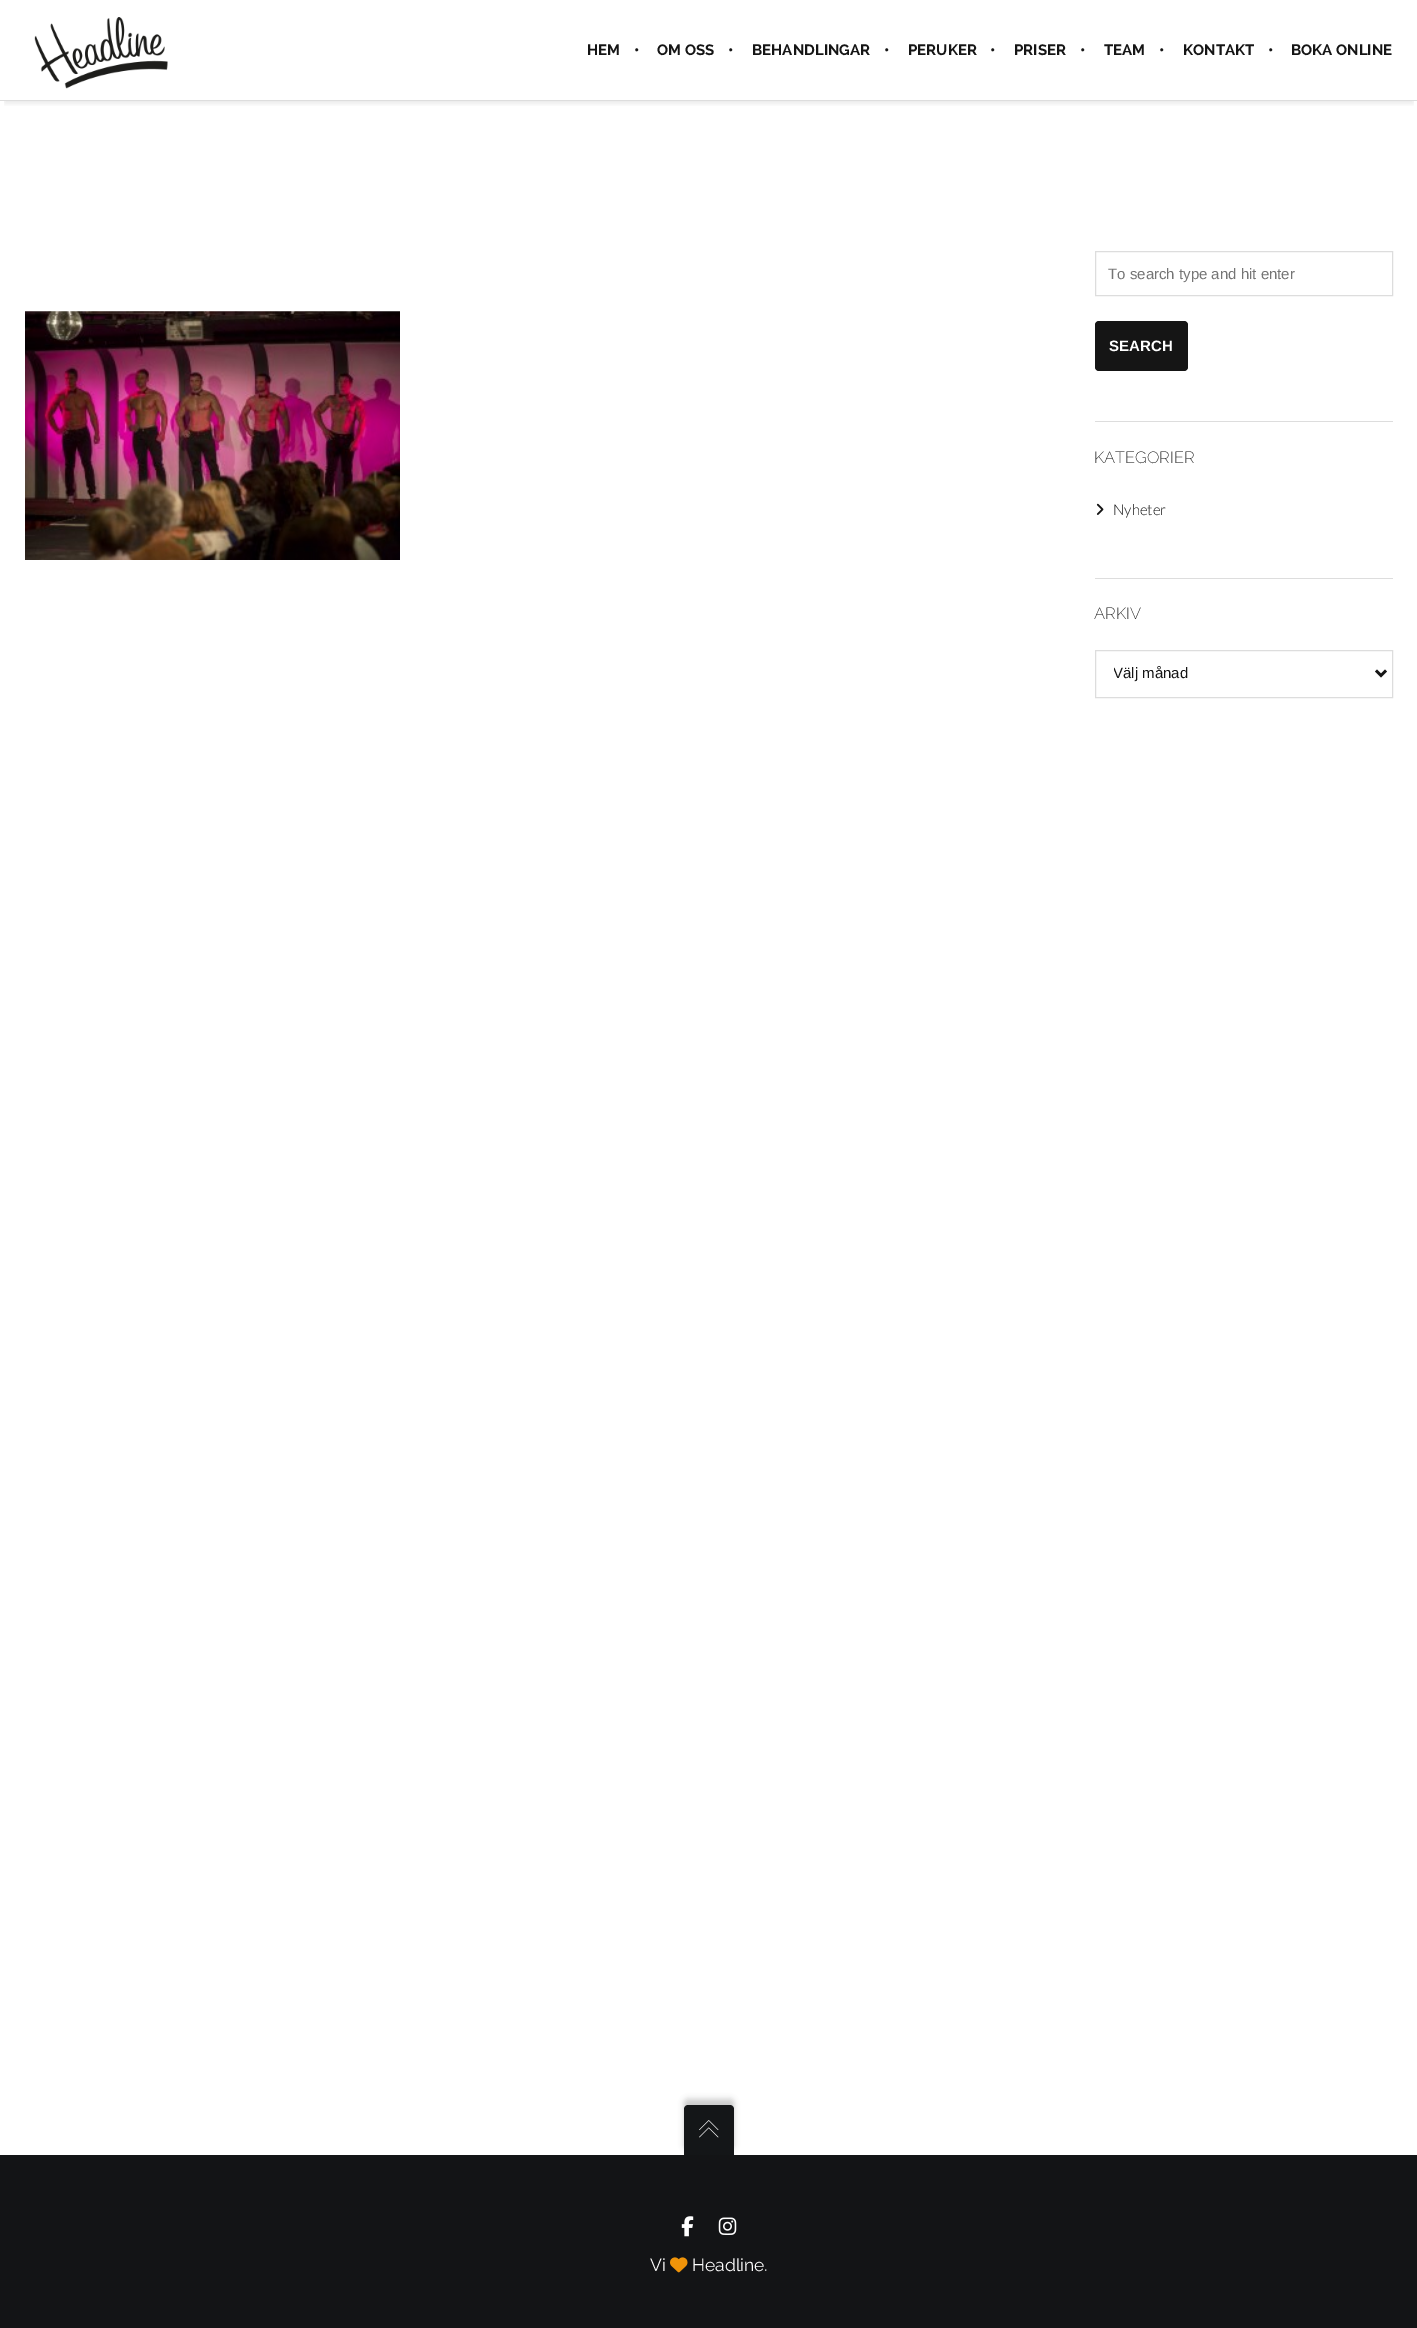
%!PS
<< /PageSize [1417 2328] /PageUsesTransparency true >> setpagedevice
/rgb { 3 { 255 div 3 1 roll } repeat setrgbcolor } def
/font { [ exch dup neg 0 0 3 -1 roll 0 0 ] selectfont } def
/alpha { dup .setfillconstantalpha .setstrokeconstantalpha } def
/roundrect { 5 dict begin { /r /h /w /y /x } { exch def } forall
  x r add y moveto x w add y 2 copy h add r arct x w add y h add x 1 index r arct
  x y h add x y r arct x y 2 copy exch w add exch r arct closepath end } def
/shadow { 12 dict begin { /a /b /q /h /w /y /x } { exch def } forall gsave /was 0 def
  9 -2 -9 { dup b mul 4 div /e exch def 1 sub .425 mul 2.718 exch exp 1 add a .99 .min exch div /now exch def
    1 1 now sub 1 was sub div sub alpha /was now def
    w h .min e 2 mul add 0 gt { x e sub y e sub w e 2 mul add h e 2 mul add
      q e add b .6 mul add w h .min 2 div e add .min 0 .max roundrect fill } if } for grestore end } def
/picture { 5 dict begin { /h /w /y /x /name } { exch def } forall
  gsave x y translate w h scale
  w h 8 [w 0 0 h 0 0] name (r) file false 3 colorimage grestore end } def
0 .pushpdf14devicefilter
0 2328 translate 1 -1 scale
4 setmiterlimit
255 255 255 rgb
0 0 1417 2328 rectfill
gsave
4 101 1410 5 rectclip
0 0 0 rgb
5 11 1408 92 0 3 0.1 shadow
grestore
221 221 221 rgb
0 100 1417 1 rectfill
(img/1.rgb) 34 17 134 72 picture
(img/2.rgb) 25 311 375 249 picture
1095.5 251.5 297 44 rectstroke
21 21 21 rgb
1095 321 93 50 4 roundrect fill
221 221 221 rgb
1095 421 298 1 rectfill
(img/3.rgb) 1096 503 8 12 picture
1095 578 298 1 rectfill
1095.5 650.5 297 47 rectstroke
21 21 21 rgb
2.5 setlinewidth
1376 670.5 moveto 1381 675.5 lineto 1386 670.5 lineto stroke
19 20 22 rgb
0 2155 1417 173 rectfill
0 0 0 rgb
684 2099 50 50 4 3 0.2 shadow
20 22 24 rgb
688 2105 moveto 730 2105 lineto 732 2105 734 2107 734 2109 curveto 734 2155 lineto 684 2155 lineto 684 2109 lineto 684 2107 686 2105 688 2105 curveto closepath fill
(img/4.rgb) 699 2120 20 18 picture
(img/5.rgb) 681 2216 13 21 picture
(img/6.rgb) 718 2217 19 18 picture
(img/7.rgb) 670 2257 18 16 picture
/Raleway-Bold 15 font
21 21 21 rgb
[
  [(HEM) 587 55]
  [(•) 634 55]
  [(OM OSS) 657 55]
  [(•) 728 55]
  [(BEHANDLINGAR) 752 55]
  [(•) 884 55]
  [(PERUKER) 908 55]
  [(•) 990 55]
  [(PRISER) 1014 55]
  [(•) 1080 55]
  [(TEAM) 1104 55]
  [(•) 1159 55]
  [(KONTAKT) 1183 55]
  [(•) 1268 55]
  [(BOKA ONLINE) 1291 55]
] { aload pop moveto show } forall
/LiberationSans-Regular 15 font
117 117 117 rgb
1108 279 moveto (To search type and hit enter) show
/LiberationSans-Bold 15 font
255 255 255 rgb
1109 351 moveto (SEARCH) show
/Raleway-ExtraLight 16.25 font
21 21 21 rgb
1094 463 moveto (KATEGORIER) show
/Lato-Light 15 font
1113 515 moveto (Nyheter) show
/Raleway-ExtraLight 16.25 font
1094 619 moveto (ARKIV) show
gsave
1114 664 245 20 rectclip
/LiberationSans-Regular 15 font
1113 678 moveto (Välj månad) show
grestore
/Raleway-Regular 17.5 font
255 255 255 rgb
650 2271 moveto (Vi) show
692 2271 moveto (Headline.) show
.poppdf14devicefilter showpage
